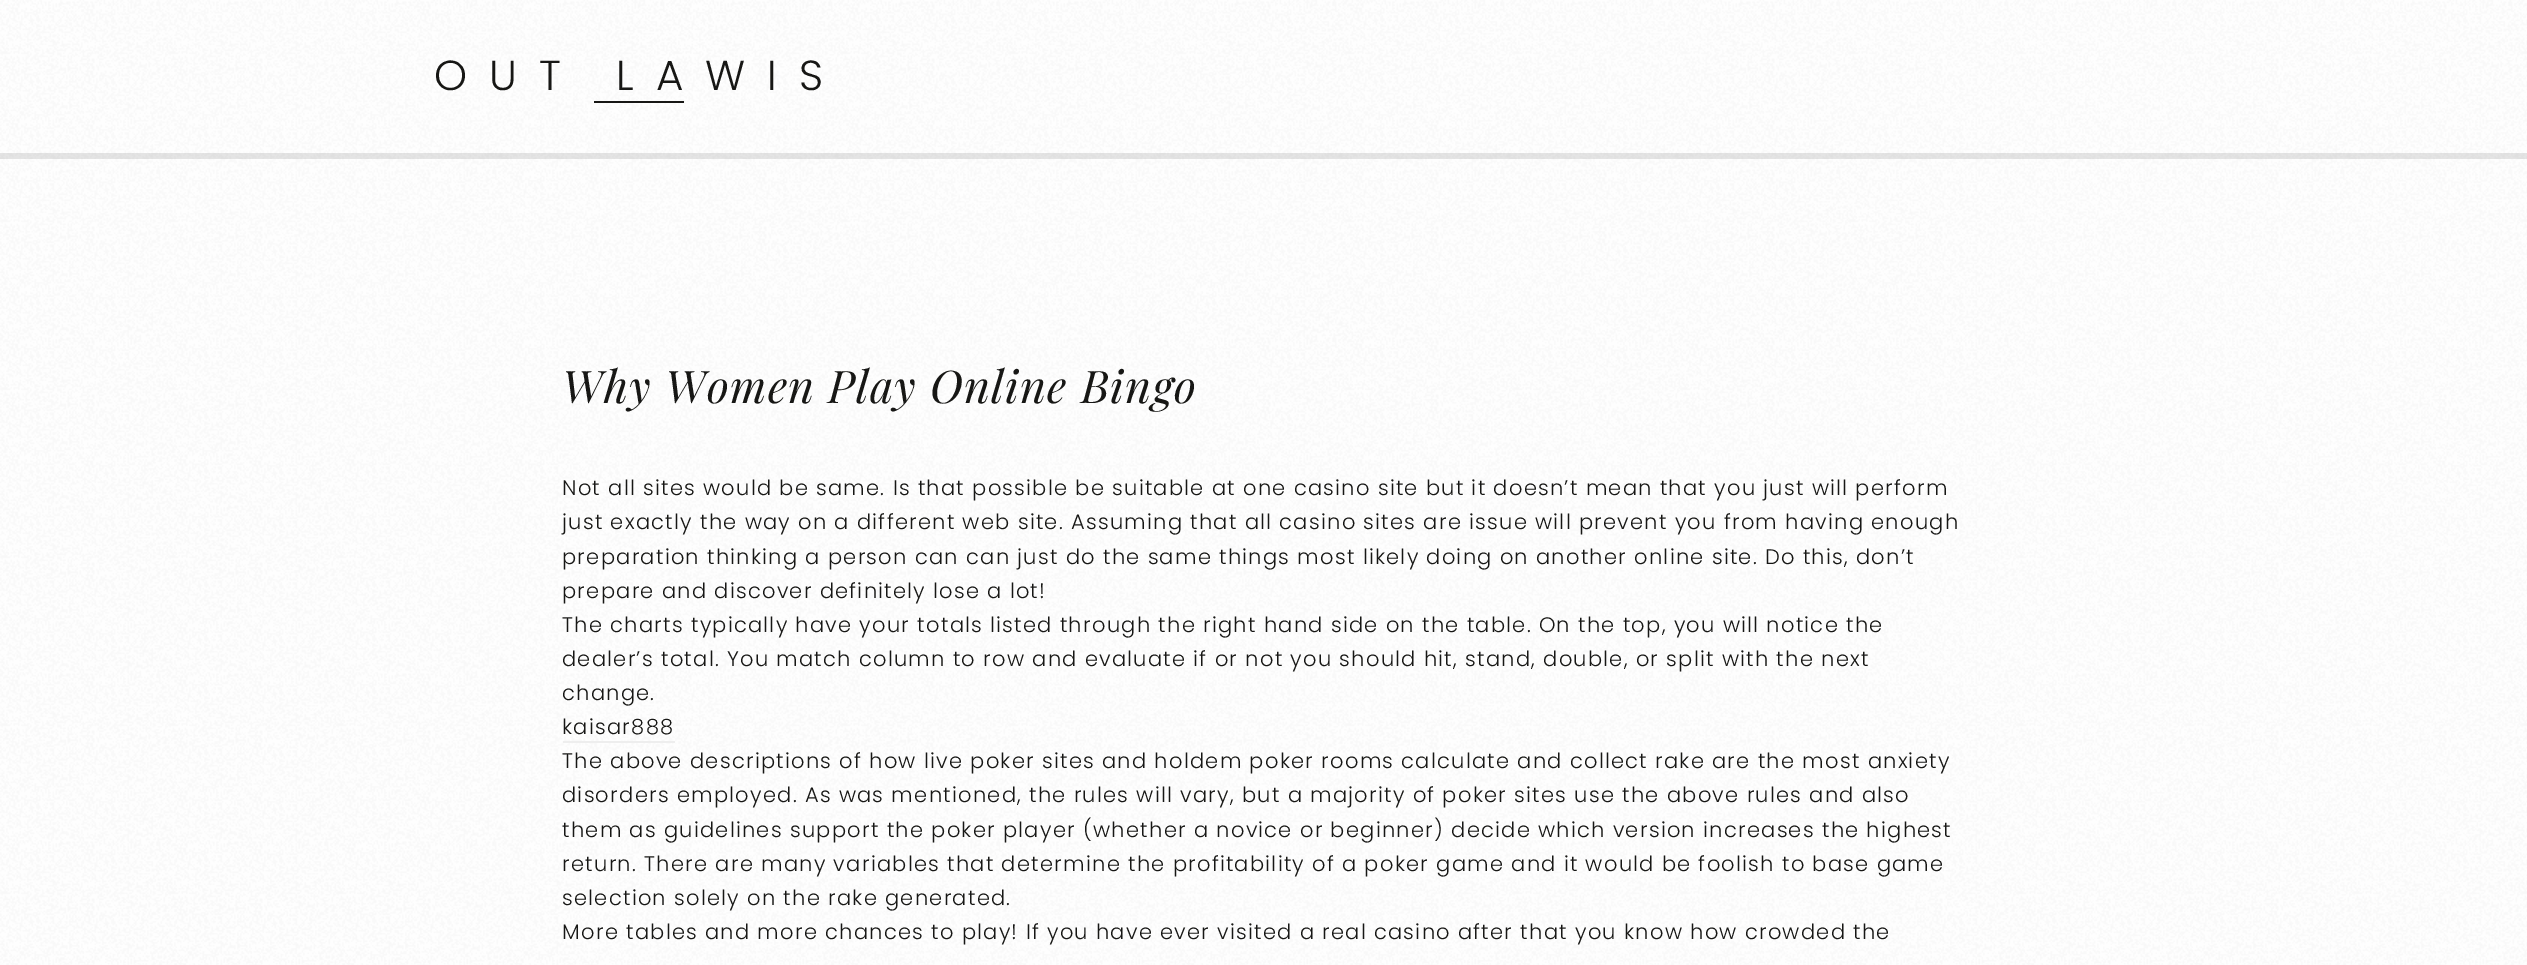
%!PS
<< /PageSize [2527 965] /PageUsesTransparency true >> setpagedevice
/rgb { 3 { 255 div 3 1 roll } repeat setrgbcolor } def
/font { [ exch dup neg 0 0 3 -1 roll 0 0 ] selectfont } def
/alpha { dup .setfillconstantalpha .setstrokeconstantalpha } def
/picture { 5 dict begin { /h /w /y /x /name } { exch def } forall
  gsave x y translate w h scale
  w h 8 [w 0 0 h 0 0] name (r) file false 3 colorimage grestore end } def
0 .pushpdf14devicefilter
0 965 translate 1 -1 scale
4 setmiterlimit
255 255 255 rgb
0 0 2527 965 rectfill
(img/1.rgb) 0 0 2527 965 picture
0.1 alpha
0 0 0 rgb
0 153 moveto 0 159 lineto 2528 159 lineto 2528 6 lineto 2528 153 lineto closepath fill
1 alpha
23 23 21 rgb
594 101 90 2 rectfill
238 238 238 rgb
563 741 112 2 rectfill
/Poppins-Light 42 font
23 23 21 rgb
434 90 moveto 22 0 (OUT LAWIS) ashow
/PlayfairDisplay-Italic 45 font
562 403 moveto 1.27 0 (Why Women Play Online Bingo) ashow
/Poppins-Light 21 font
562 495 moveto 1.27 0 (Not all sites would be same. Is that possible be suitable at one casino site but it doesn’t mean that you just will perform) ashow
562 529 moveto 1.27 0 (just exactly the way on a different web site. Assuming that all casino sites are issue will prevent you from having enough) ashow
562 564 moveto 1.27 0 (preparation thinking a person can can just do the same things most likely doing on another online site. Do this, don’t) ashow
562 598 moveto 1.27 0 (prepare and discover definitely lose a lot!) ashow
562 632 moveto 1.27 0 (The charts typically have your totals listed through the right hand side on the table. On the top, you will notice the) ashow
562 666 moveto 1.27 0 (dealer’s total. You match column to row and evaluate if or not you should hit, stand, double, or split with the next) ashow
562 700 moveto 1.27 0 (change.) ashow
562 734 moveto 1.27 0 (kaisar888) ashow
562 768 moveto 1.27 0 (The above descriptions of how live poker sites and holdem poker rooms calculate and collect rake are the most anxiety) ashow
562 802 moveto 1.27 0 (disorders employed. As was mentioned, the rules will vary, but a majority of poker sites use the above rules and also) ashow
562 837 moveto 1.27 0 (them as guidelines support the poker player \(whether a novice or beginner\) decide which version increases the highest) ashow
562 871 moveto 1.27 0 (return. There are many variables that determine the profitability of a poker game and it would be foolish to base game) ashow
562 905 moveto 1.27 0 (selection solely on the rake generated.) ashow
562 939 moveto 1.27 0 (More tables and more chances to play! If you have ever visited a real casino after that you know how crowded the) ashow
.poppdf14devicefilter showpage
